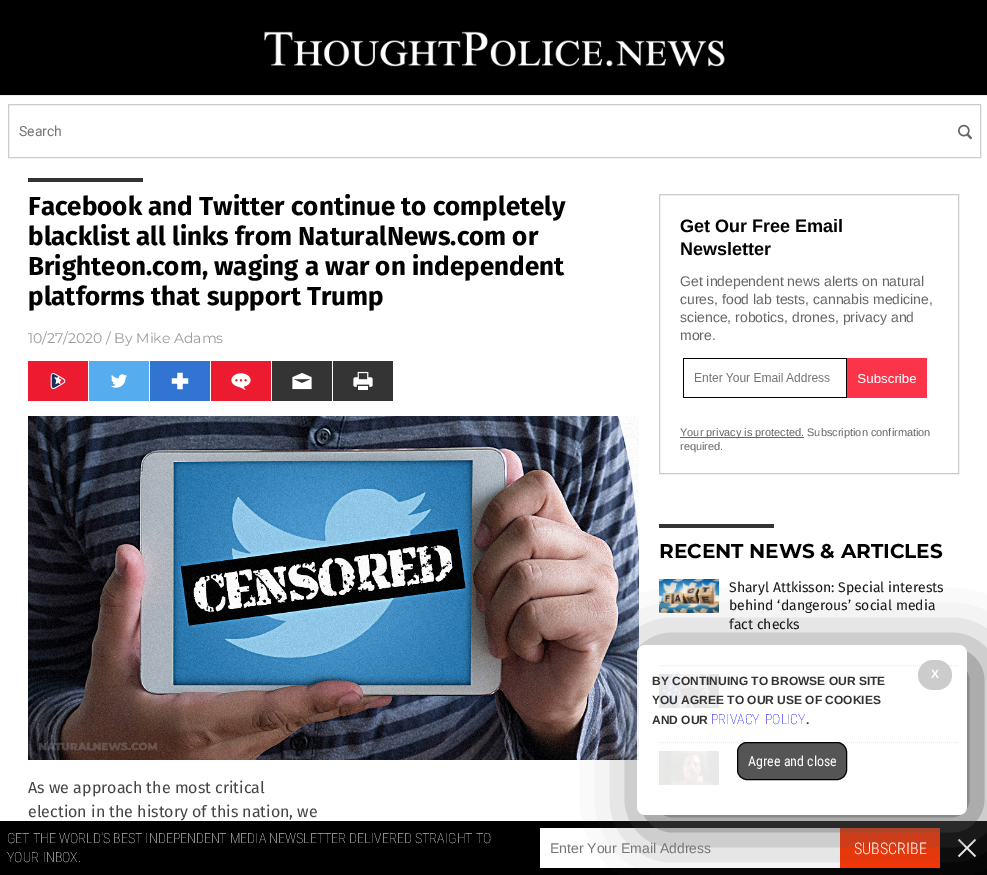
%!PS
<< /PageSize [987 875] /PageUsesTransparency true >> setpagedevice
/rgb { 3 { 255 div 3 1 roll } repeat setrgbcolor } def
/font { [ exch dup neg 0 0 3 -1 roll 0 0 ] selectfont } def
/alpha { dup .setfillconstantalpha .setstrokeconstantalpha } def
/roundrect { 5 dict begin { /r /h /w /y /x } { exch def } forall
  x r add y moveto x w add y 2 copy h add r arct x w add y h add x 1 index r arct
  x y h add x y r arct x y 2 copy exch w add exch r arct closepath end } def
/shadow { 12 dict begin { /a /b /q /h /w /y /x } { exch def } forall gsave /was 0 def
  9 -2 -9 { dup b mul 4 div /e exch def 1 sub .425 mul 2.718 exch exp 1 add a .99 .min exch div /now exch def
    1 1 now sub 1 was sub div sub alpha /was now def
    w h .min e 2 mul add 0 gt { x e sub y e sub w e 2 mul add h e 2 mul add
      q e add b .6 mul add w h .min 2 div e add .min 0 .max roundrect fill } if } for grestore end } def
/picture { 5 dict begin { /h /w /y /x /name } { exch def } forall
  gsave x y translate w h scale
  w h 8 [w 0 0 h 0 0] name (r) file false 3 colorimage grestore end } def
0 .pushpdf14devicefilter
0 875 translate 1 -1 scale
4 setmiterlimit
0 0 0 rgb
0 0 987 875 rectfill
(img/1.rgb) 264 31 461 36 picture
255 255 255 rgb
0 96 987 725 rectfill
236 236 236 rgb
0 95 987 1 rectfill
204 204 204 rgb
8.5 104.5 972 53 rectstroke
(img/2.rgb) 958 124 14 16 picture
51 51 51 rgb
28 178 115 4 rectfill
237 27 47 rgb
28 361 60 40 rectfill
(img/3.rgb) 50 373 16 16 picture
85 172 239 rgb
89 361 60 40 rectfill
(img/4.rgb) 111 374 16 14 picture
50 116 209 rgb
150 361 60 40 rectfill
(img/5.rgb) 171 372 18 18 picture
237 27 47 rgb
211 361 60 40 rectfill
(img/6.rgb) 231 373 20 17 picture
52 52 52 rgb
272 361 60 40 rectfill
(img/7.rgb) 292 373 20 17 picture
333 361 60 40 rectfill
(img/8.rgb) 353 371 20 19 picture
(img/9.rgb) 28 416 611 344 picture
204 204 204 rgb
659.5 194.5 299 279 rectstroke
(img/10.rgb) 683 358 244 40 picture
102 102 102 rgb
680 437 124 1 rectfill
52 52 52 rgb
659 524 115 4 rectfill
[1 1] 0 setdash
659 665.5 moveto 959 665.5 lineto stroke
(img/11.rgb) 659 579 60 34 picture
659 742.5 moveto 959 742.5 lineto stroke
(img/12.rgb) 659 674 60 34 picture
(img/13.rgb) 659 751 60 34 picture
255 255 255 rgb
540 828 300 40 rectfill
255 51 0 rgb
840 828 100 40 rectfill
(img/14.rgb) 957 838 20 20 picture
gsave
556 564 moveto 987 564 lineto 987 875 lineto 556 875 lineto closepath 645 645 moveto 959 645 lineto 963.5 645 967 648.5 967 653 curveto 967 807 lineto 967 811.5 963.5 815 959 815 curveto 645 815 lineto 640.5 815 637 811.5 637 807 curveto 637 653 lineto 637 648.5 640.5 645 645 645 curveto closepath eoclip newpath
85 85 85 rgb
647 655 330 170 8 30 1 shadow
grestore
0.9 alpha
255 255 255 rgb
637 645 330 170 8 roundrect fill
1 alpha
204 204 204 rgb
918 660 34 30 15 roundrect fill
85 85 85 rgb
737.5 742.5 109 37 9.5 roundrect gsave fill grestore
0 0 0 rgb
[] 0 setdash
stroke
/Roboto-Regular 14 font
117 117 117 rgb
19 136 moveto (Search) show
/FiraSans-Bold 26 font
0 0 0 rgb
[
  [(Facebook and Twitter continue to completely) 28 215]
  [(blacklist all links from NaturalNews.com or) 28 245]
  [(Brighteon.com, waging a war on independent) 28 275]
  [(platforms that support Trump) 28 305]
] { aload pop moveto show } forall
/Montserrat-Regular 14 font
153 153 153 rgb
28 343 moveto (10/27/2020 / By Mike Adams) show
/FiraSans-Regular 16 font
69 69 69 rgb
28 793 moveto (As we approach the most critical) show
28 817 moveto (election in the history of this nation, we) show
/LiberationSans-Bold 18 font
0 0 0 rgb
680 232 moveto (Get Our Free Email) show
680 255 moveto (Newsletter) show
/LiberationSans-Regular 14 font
102 102 102 rgb
[
  [(Get independent news alerts on natural) 680 286]
  [(cures, food lab tests, cannabis medicine,) 680 304]
  [(science, robotics, drones, privacy and) 680 322]
  [(more.) 680 340]
] { aload pop moveto show } forall
/LiberationSans-Regular 11 font
680 436 moveto (Your privacy is protected. Subscription confirmation) show
680 450 moveto (required.) show
/Montserrat-Bold 20 font
0 0 0 rgb
659 558 moveto (RECENT NEWS & ARTICLES) show
/FiraSans-Regular 14 font
26 26 26 rgb
[
  [(Sharyl Attkisson: Special interests) 729 592]
  [(behind ‘dangerous’ social media) 729 610]
  [(fact checks) 729 629]
] { aload pop moveto show } forall
/LiberationSans-Bold 12 font
255 255 255 rgb
931 678 moveto (X) show
51 51 51 rgb
[
  [(BY CONTINUING TO BROWSE OUR SITE) 652 685]
  [(YOU AGREE TO OUR USE OF COOKIES) 652 704]
  [(AND OUR) 652 724]
] { aload pop moveto show } forall
/RobotoCondensed-Thin 14 font
0 0 255 rgb
711 724 moveto 2 0 32 (PRIVACY POLICY) widthshow
/LiberationSans-Bold 12 font
51 51 51 rgb
806 724 moveto (.) show
/RobotoCondensed-Regular 14 font
255 255 255 rgb
748 766 moveto (Agree and close) show
/RobotoCondensed-Thin 14 font
7 843 moveto (GET THE WORLD'S BEST INDEPENDENT MEDIA NEWSLETTER DELIVERED STRAIGHT TO) show
7 862 moveto 1 0 32 (YOUR INBOX.) widthshow
/LiberationSans-Regular 14 font
117 117 117 rgb
550 853 moveto (Enter Your Email Address) show
/RobotoCondensed-Light 16 font
255 255 255 rgb
854 854 moveto (SUBSCRIBE) show
.poppdf14devicefilter showpage
